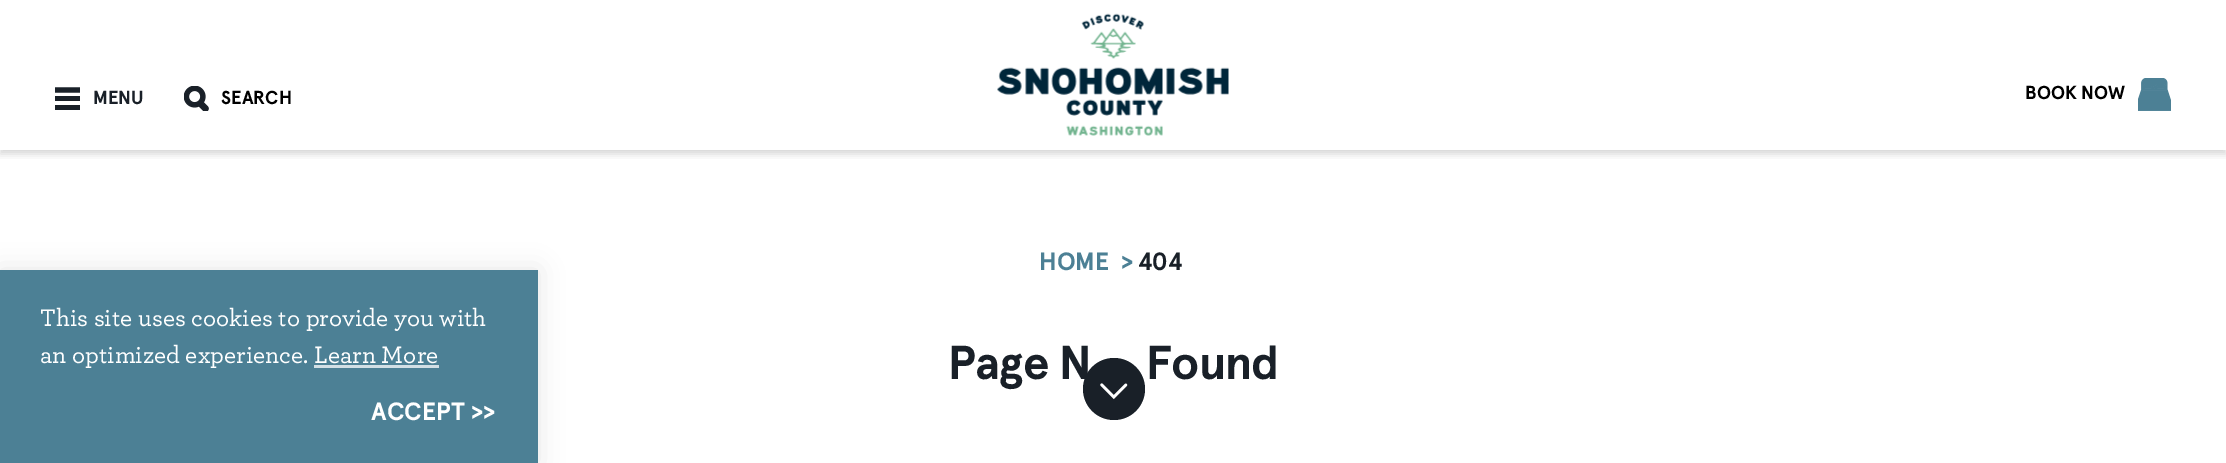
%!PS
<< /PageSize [2226 463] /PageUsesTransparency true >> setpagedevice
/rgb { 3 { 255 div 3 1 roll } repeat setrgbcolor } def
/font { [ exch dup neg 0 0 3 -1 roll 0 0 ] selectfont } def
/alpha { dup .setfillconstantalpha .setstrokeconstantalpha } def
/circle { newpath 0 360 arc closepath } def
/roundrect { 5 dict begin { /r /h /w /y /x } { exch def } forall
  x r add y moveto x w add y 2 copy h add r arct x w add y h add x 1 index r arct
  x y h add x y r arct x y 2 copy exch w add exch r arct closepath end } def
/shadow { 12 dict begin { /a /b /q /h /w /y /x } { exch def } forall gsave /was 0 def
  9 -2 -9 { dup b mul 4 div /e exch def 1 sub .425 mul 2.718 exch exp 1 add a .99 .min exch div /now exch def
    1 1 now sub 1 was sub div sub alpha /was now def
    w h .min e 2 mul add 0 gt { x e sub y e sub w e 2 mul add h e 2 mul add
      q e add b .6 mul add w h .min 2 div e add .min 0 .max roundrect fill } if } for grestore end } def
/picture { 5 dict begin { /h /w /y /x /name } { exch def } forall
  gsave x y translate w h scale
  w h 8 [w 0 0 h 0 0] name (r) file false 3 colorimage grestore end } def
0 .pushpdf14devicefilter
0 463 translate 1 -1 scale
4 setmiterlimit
255 255 255 rgb
0 0 2226 463 rectfill
gsave
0 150 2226 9 rectclip
0 0 0 rgb
0 4 2226 150 0 4 0.16 shadow
grestore
25 32 40 rgb
5.2 setlinewidth
55 90 moveto 80 90 lineto stroke
55 96 25 5 rectfill
55 105 25 5 rectfill
(img/1.rgb) 184 86 25 25 picture
(img/2.rgb) 997 13 232 123 picture
(img/3.rgb) 2138 78 33 33 picture
0 0 0 rgb
0 270 538 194 0 12.5 0.1 shadow
76 128 149 rgb
0 270 538 193 rectfill
25 32 40 rgb
1114 389 31 circle fill
(img/4.rgb) 1100 383 28 17 picture
/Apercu-Bold 18.75 font
93 104 moveto (MENU) show
0 0 0 rgb
221 104 moveto (SEARCH) show
2025 99 moveto (BOOK NOW) show
/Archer-Medium 25 font
255 255 255 rgb
40 326 moveto (This site uses cookies to provide you with) show
40 363 moveto (an optimized experience. Learn More) show
210 223 229 rgb
314 365 125 3 rectfill
/Apercu-Bold 25 font
255 255 255 rgb
371 420 moveto -0.1 0 (ACCEPT >>) ashow
76 128 149 rgb
1039 270 moveto (HOME) show
1121 270 moveto (>) show
25 32 40 rgb
1138 270 moveto (404) show
/Apercu-Bold 47.5 font
948 379 moveto -1 0 (Page N) ashow
1146 379 moveto -1 0 (Found) ashow
.poppdf14devicefilter showpage
